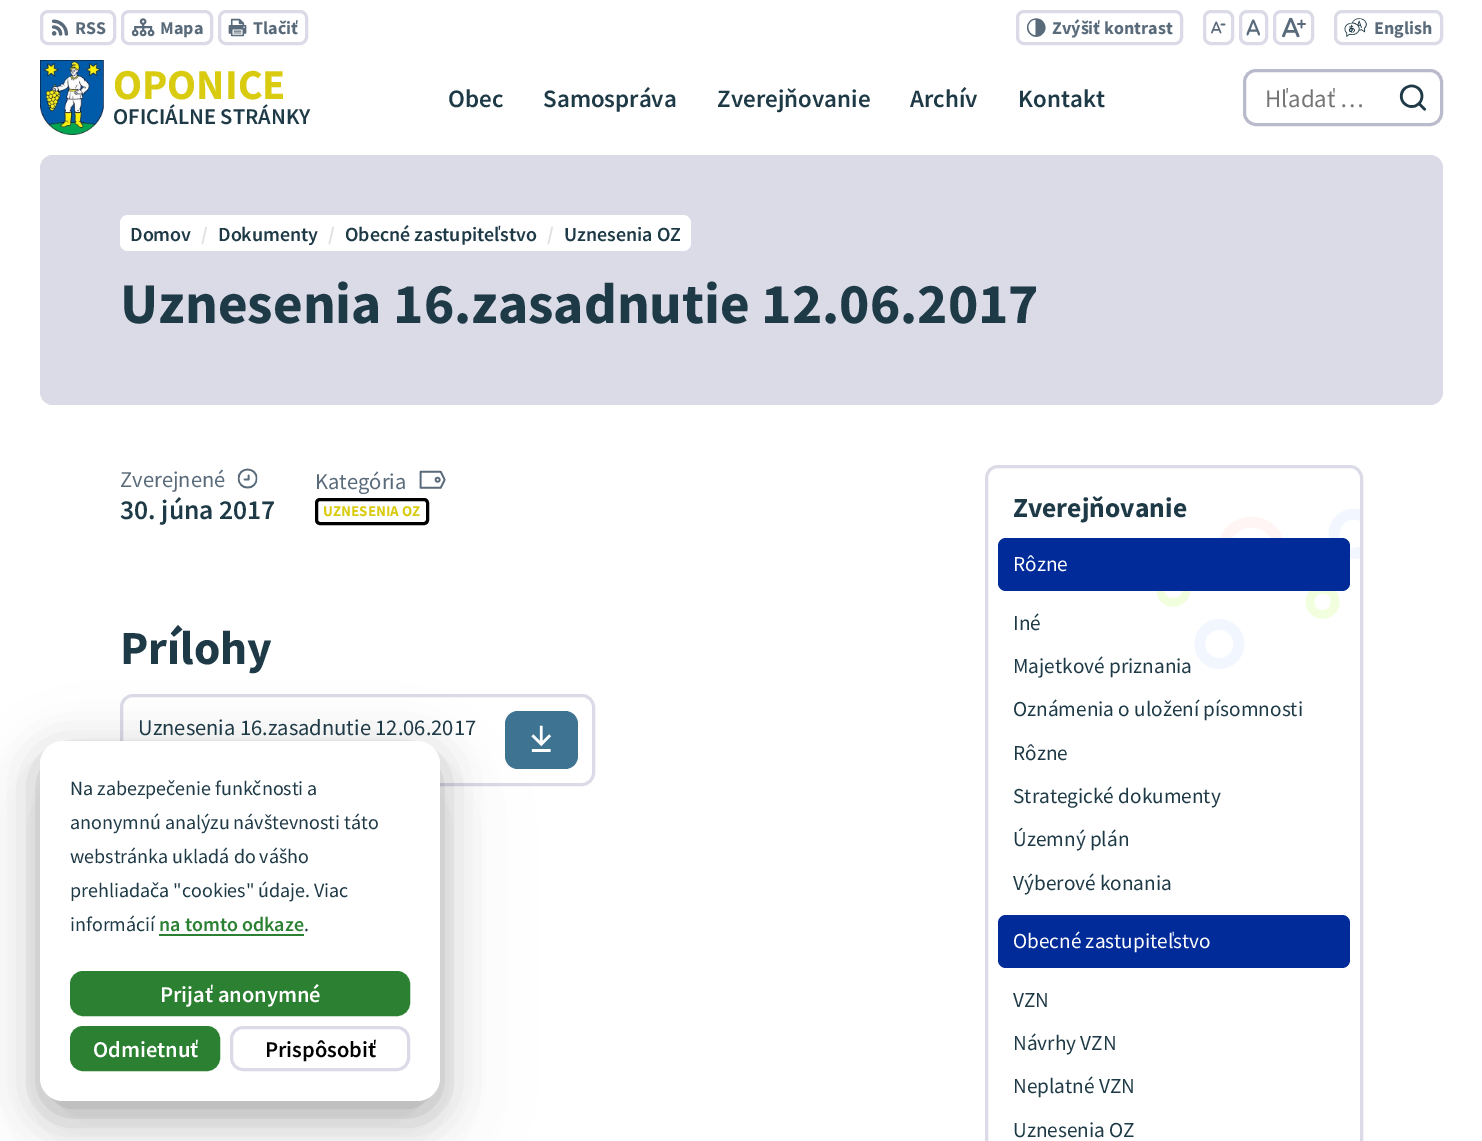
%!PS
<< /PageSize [1482 1141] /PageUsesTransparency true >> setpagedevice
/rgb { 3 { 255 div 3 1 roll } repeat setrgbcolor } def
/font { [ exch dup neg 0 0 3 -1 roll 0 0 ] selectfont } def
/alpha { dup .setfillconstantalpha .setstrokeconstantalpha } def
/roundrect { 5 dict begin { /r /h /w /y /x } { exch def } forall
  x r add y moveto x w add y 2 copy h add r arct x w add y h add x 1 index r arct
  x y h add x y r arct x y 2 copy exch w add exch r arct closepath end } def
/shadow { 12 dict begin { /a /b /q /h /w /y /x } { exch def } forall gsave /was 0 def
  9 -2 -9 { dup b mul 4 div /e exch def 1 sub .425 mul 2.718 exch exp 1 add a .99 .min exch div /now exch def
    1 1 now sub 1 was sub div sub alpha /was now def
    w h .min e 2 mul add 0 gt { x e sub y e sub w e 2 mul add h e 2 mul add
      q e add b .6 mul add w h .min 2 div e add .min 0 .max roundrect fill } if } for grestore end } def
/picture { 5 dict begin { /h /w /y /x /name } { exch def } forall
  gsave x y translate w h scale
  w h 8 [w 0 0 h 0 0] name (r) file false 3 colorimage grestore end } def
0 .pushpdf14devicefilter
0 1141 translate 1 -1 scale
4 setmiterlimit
255 255 255 rgb
0 0 1482 1141 rectfill
219 219 231 rgb
3 setlinewidth
41.5 11.5 73 32 6.5 roundrect stroke
(img/1.rgb) 51 19 18 17 picture
122.5 11.5 89 32 6.5 roundrect stroke
(img/2.rgb) 131 18 24 19 picture
219.5 11.5 87 32 6.5 roundrect stroke
(img/3.rgb) 228 18 19 19 picture
1017.5 11.5 164 32 6.5 roundrect stroke
(img/4.rgb) 1026 18 20 19 picture
1204.5 11.5 28 32 6.5 roundrect stroke
(img/5.rgb) 1211 21 15 13 picture
1240.5 11.5 26 32 6.5 roundrect stroke
(img/6.rgb) 1246 19 14 17 picture
1274.5 11.5 38 32 6.5 roundrect stroke
(img/7.rgb) 1282 17 24 21 picture
1335.5 11.5 106 32 6.5 roundrect stroke
(img/8.rgb) 1344 18 23 19 picture
(img/9.rgb) 40 60 64 75 picture
185 186 203 rgb
1244.5 70.5 197 54 11.5 roundrect stroke
(img/10.rgb) 1399 84 28 27 picture
219 219 231 rgb
40 155 1403 250 13 roundrect fill
255 255 255 rgb
120 215 571 36 8 roundrect fill
(img/11.rgb) 237 468 21 21 picture
(img/12.rgb) 419 470 27 19 picture
0 0 0 rgb
316.5 499.5 111 24 3.5 roundrect stroke
219 219 231 rgb
121.5 695.5 472 89 11.5 roundrect stroke
62 116 145 rgb
505 711 73 58 13 roundrect fill
(img/13.rgb) 531 725 21 27 picture
(img/14.rgb) 1156 509 204 160 picture
219 219 231 rgb
986.5 466.5 375 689 11.5 roundrect stroke
0 43 152 rgb
998 538 352 53 8 roundrect fill
998 915 352 53 8 roundrect fill
0 0 0 rgb
40 779 400 360 23 56 0.05 shadow
40 766 400 360 23 37.5 0.05 shadow
40 754 400 360 23 19 0.25 shadow
255 255 255 rgb
40 741 400 360 23 roundrect fill
43 128 50 rgb
159 934 145 2 rectfill
71.5 972.5 337 42 11.5 roundrect gsave fill grestore
stroke
71.5 1027.5 147 42 11.5 roundrect gsave fill grestore
stroke
219 219 231 rgb
231.5 1027.5 177 42 11.5 roundrect stroke
/SourceSansPro-Bold 18 font
89 106 122 rgb
[
  [(RSS) 75 34]
  [(Mapa) 160 34]
  [(Tlačiť) 253 34]
  [(Zvýšiť kontrast) 1052 34]
  [(English) 1374 34]
] { aload pop moveto show } forall
/SourceSansPro-Bold 42.5 font
216 203 16 rgb
113 99 moveto (OPONICE) show
/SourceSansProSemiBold-SemiBold 22.5 font
31 58 71 rgb
113 124 moveto (OFICIÁLNE STRÁNKY) show
/SourceSansProSemiBold-SemiBold 25 font
[
  [(Obec) 448 107]
  [(Samospráva) 543 107]
  [(Zverejňovanie) 717 107]
  [(Archív) 910 107]
  [(Kontakt) 1018 107]
] { aload pop moveto show } forall
/SourceSansPro-Regular 25 font
117 117 117 rgb
1265 107 moveto (Hľadať …) show
/SourceSansProSemiBold-SemiBold 20 font
31 58 71 rgb
130 241 moveto (Domov) show
/SourceSansPro-Bold 20 font
225 225 225 rgb
201 241 moveto (/) show
/SourceSansProSemiBold-SemiBold 20 font
31 58 71 rgb
218 241 moveto (Dokumenty) show
/SourceSansPro-Bold 20 font
225 225 225 rgb
328 241 moveto (/) show
/SourceSansProSemiBold-SemiBold 20 font
31 58 71 rgb
345 241 moveto (Obecné zastupiteľstvo) show
/SourceSansPro-Bold 20 font
225 225 225 rgb
547 241 moveto (/) show
/SourceSansProSemiBold-SemiBold 20 font
31 58 71 rgb
564 241 moveto (Uznesenia OZ) show
/SourceSansPro-Bold 57.5 font
120 323 moveto (Uznesenia 16.zasadnutie 12.06.2017) show
/SourceSansPro-Regular 22.5 font
89 106 122 rgb
120 487 moveto (Zverejnené) show
/SourceSansProSemiBold-SemiBold 27.5 font
31 58 71 rgb
120 519 moveto (30. júna 2017) show
/SourceSansPro-Regular 22.5 font
89 106 122 rgb
315 489 moveto (Kategória) show
/SourceSansPro-Bold 15 font
216 203 16 rgb
323 516 moveto (UZNESENIA OZ) show
/SourceSansPro-Bold 47.5 font
31 58 71 rgb
120 664 moveto (Prílohy) show
/SourceSansPro-Regular 22.5 font
138 735 moveto (Uznesenia 16.zasadnutie 12.06.2017) show
/SourceSansPro-Bold 27.5 font
1013 517 moveto (Zverejňovanie) show
/SourceSansPro-Regular 21.25 font
255 255 255 rgb
1013 571 moveto (Rôzne) show
31 58 71 rgb
[
  [(Iné) 1013 630]
  [(Majetkové priznania) 1013 673]
  [(Oznámenia o uložení písomnosti) 1013 716]
  [(Rôzne) 1013 760]
  [(Strategické dokumenty) 1013 803]
  [(Územný plán) 1013 846]
  [(Výberové konania) 1013 890]
] { aload pop moveto show } forall
255 255 255 rgb
1013 948 moveto (Obecné zastupiteľstvo) show
31 58 71 rgb
[
  [(VZN) 1013 1007]
  [(Návrhy VZN) 1013 1050]
  [(Neplatné VZN) 1013 1093]
  [(Uznesenia OZ) 1013 1137]
] { aload pop moveto show } forall
/SourceSansPro-Regular 20 font
[
  [(Na zabezpečenie funkčnosti a) 70 795]
  [(anonymnú analýzu návštevnosti táto) 70 829]
  [(webstránka ukladá do vášho) 70 863]
  [(prehliadača "cookies" údaje. Viac) 70 897]
  [(informácií) 70 931]
] { aload pop moveto show } forall
/SourceSansProSemiBold-SemiBold 20 font
43 128 50 rgb
159 931 moveto (na tomto odkaze) show
/SourceSansPro-Regular 20 font
31 58 71 rgb
304 931 moveto (.) show
/SourceSansProSemiBold-SemiBold 22.5 font
255 255 255 rgb
160 1002 moveto (Prijať anonymné) show
93 1057 moveto (Odmietnuť) show
0 0 0 rgb
265 1057 moveto (Prispôsobiť) show
.poppdf14devicefilter showpage
